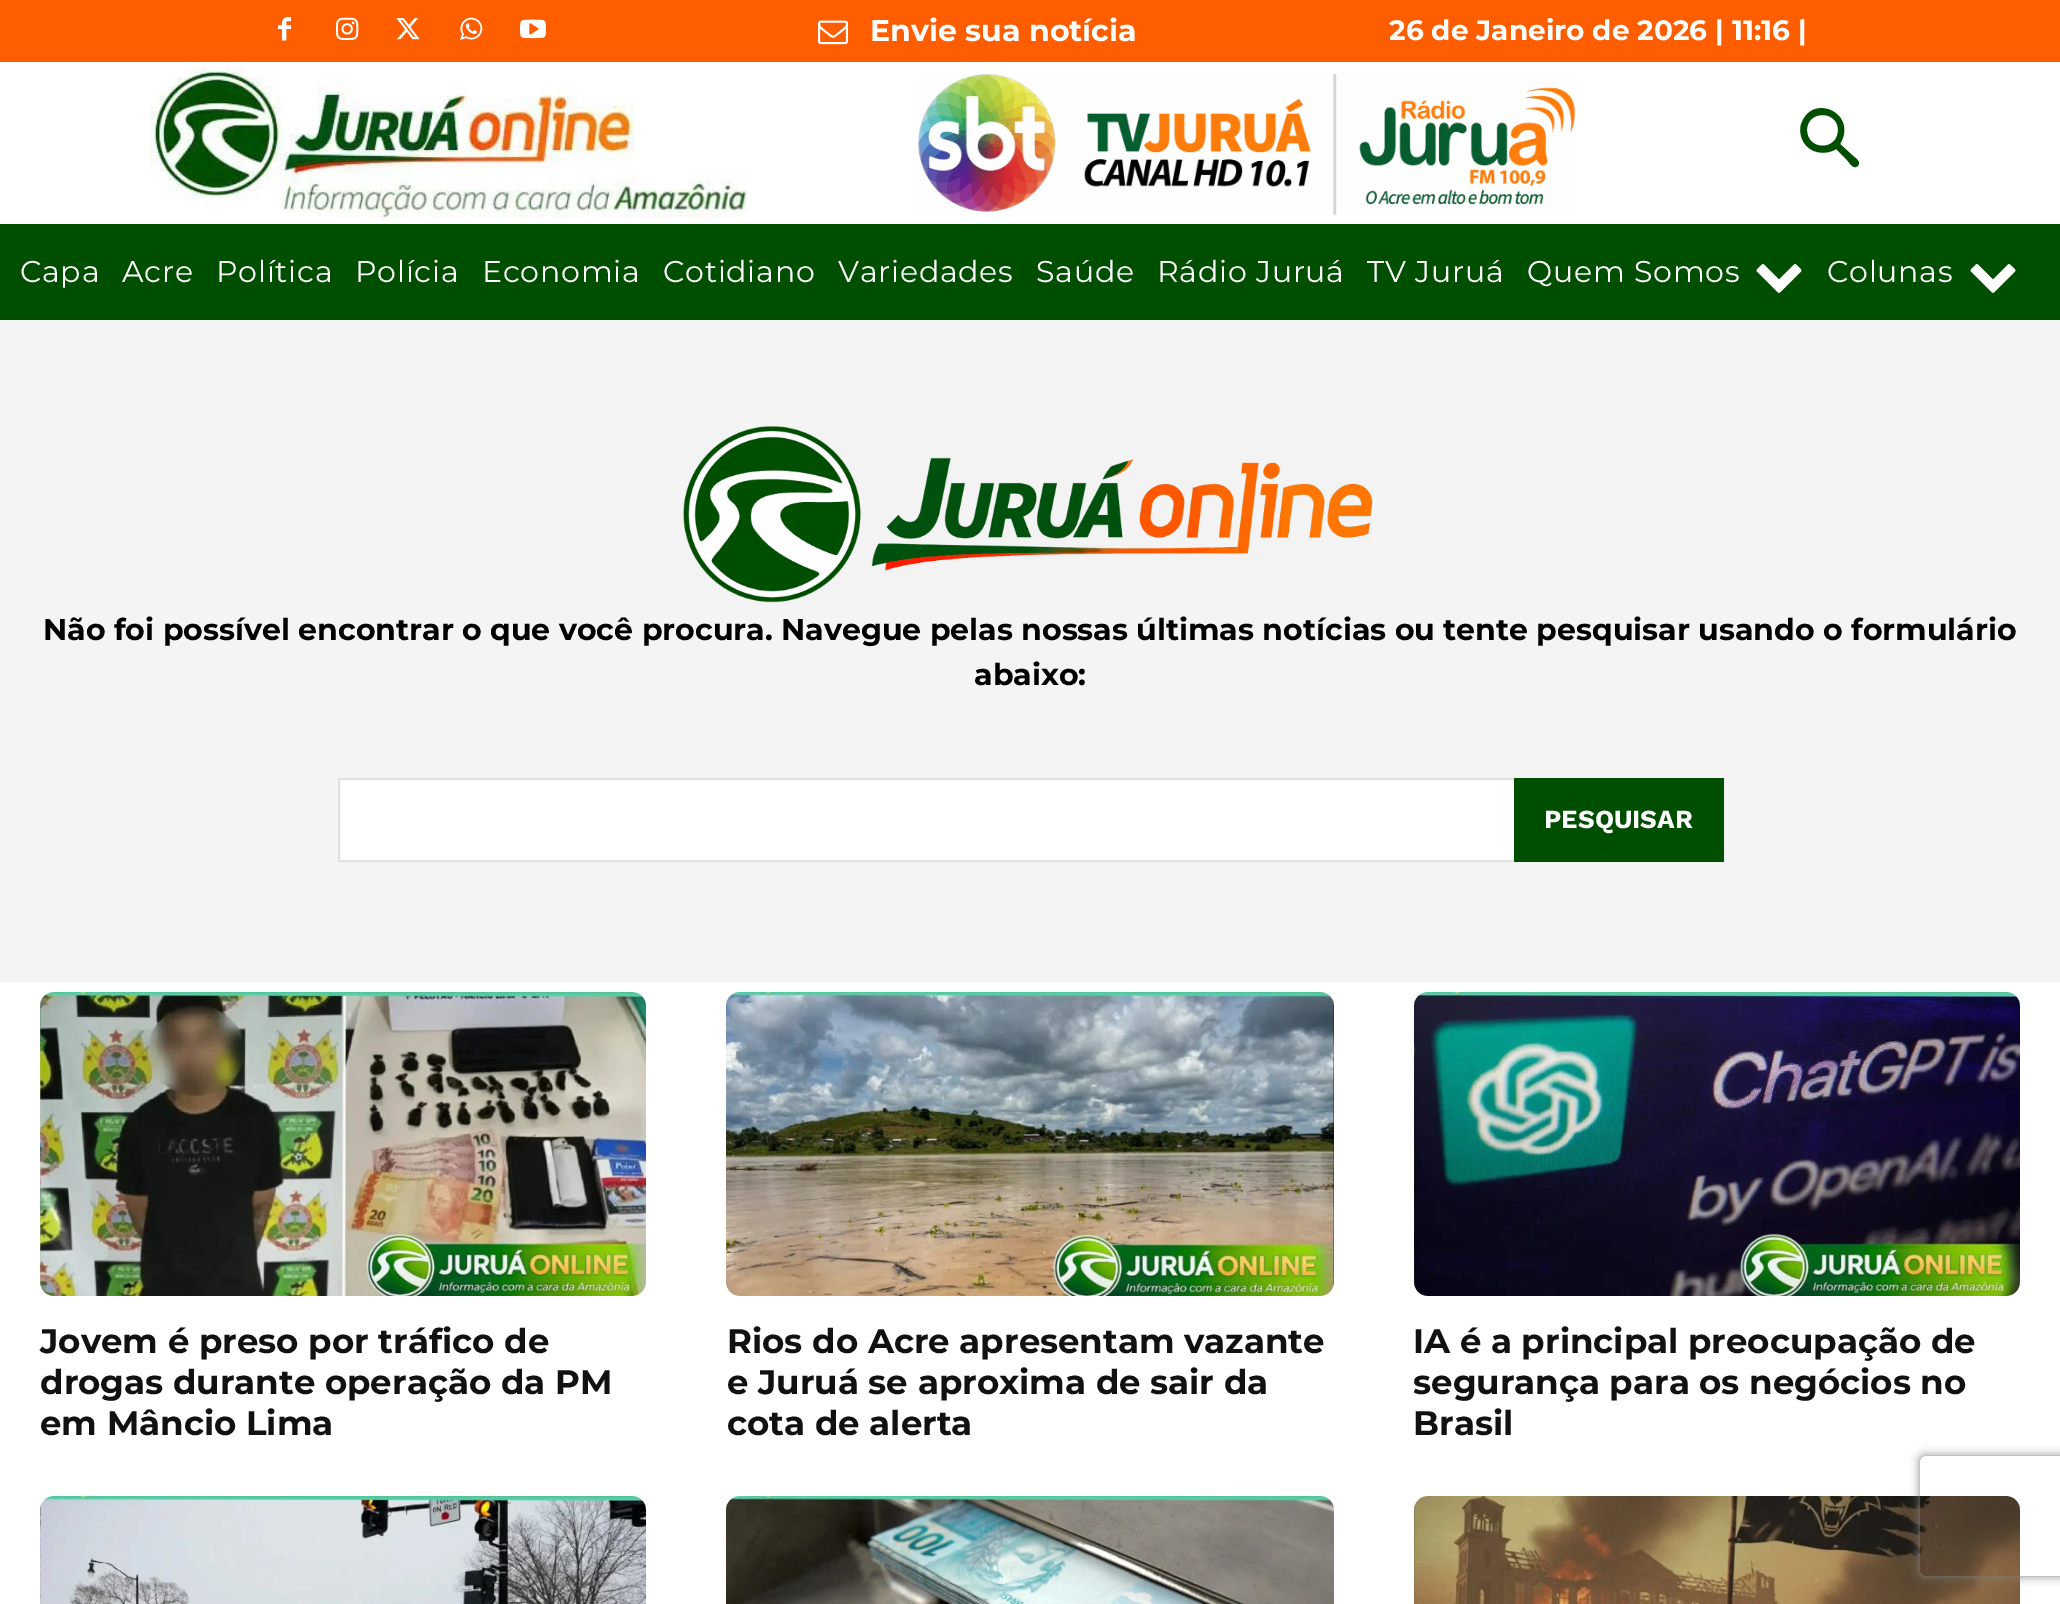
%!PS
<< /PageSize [2060 1604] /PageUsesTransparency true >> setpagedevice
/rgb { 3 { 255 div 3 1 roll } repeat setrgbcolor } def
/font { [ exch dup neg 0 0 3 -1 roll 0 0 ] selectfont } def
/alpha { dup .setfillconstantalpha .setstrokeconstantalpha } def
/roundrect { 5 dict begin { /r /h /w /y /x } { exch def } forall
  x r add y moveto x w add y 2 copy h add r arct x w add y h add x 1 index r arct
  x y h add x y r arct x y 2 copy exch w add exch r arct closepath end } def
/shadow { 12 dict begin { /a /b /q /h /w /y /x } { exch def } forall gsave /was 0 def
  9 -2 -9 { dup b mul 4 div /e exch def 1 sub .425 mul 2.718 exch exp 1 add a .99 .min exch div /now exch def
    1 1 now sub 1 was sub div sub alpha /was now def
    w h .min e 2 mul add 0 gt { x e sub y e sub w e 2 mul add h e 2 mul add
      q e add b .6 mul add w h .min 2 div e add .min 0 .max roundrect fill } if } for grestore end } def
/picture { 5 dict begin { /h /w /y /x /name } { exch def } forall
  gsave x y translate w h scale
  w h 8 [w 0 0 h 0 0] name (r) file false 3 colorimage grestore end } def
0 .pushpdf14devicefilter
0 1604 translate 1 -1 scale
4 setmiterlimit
255 255 255 rgb
0 0 2060 1604 rectfill
255 94 0 rgb
0 0 2060 62 rectfill
(img/1.rgb) 278 17 13 24 picture
(img/2.rgb) 336 17 23 23 picture
(img/3.rgb) 396 18 24 22 picture
(img/4.rgb) 460 17 23 23 picture
(img/5.rgb) 520 19 26 20 picture
(img/6.rgb) 818 20 30 25 picture
(img/7.rgb) 150 68 597 150 picture
(img/8.rgb) 918 74 658 142 picture
0 78 0 rgb
1838 130 moveto 1838 151 1807 151 1807 130 curveto 1807 110 1838 110 1838 130 curveto closepath 1859 163 moveto 1859 160 1854 157 1852 155 curveto 1840 144 lineto 1858 114 1814 93 1802 122 curveto 1799 128 1800 135 1803 141 curveto 1809 153 1825 156 1836 149 curveto 1847 160 lineto 1849 162 1852 168 1856 167 curveto 1857 167 1859 165 1859 163 curveto closepath fill
0 224 2060 96 rectfill
(img/9.rgb) 1756 264 46 29 picture
(img/9.rgb) 1970 264 46 29 picture
244 244 244 rgb
0 320 2060 662 rectfill
(img/10.rgb) 683 426 690 177 picture
255 255 255 rgb
340 780 1174 80 rectfill
225 225 225 rgb
2 setlinewidth
339 779 1384 82 rectstroke
0 78 0 rgb
1514 778 210 84 rectfill
(img/11.rgb) 40 992 606 304 picture
(img/12.rgb) 726 992 608 304 picture
(img/13.rgb) 1414 992 606 304 picture
(img/14.rgb) 40 1496 606 108 picture
(img/15.rgb) 726 1496 608 108 picture
(img/16.rgb) 1414 1496 606 108 picture
gsave
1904 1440 moveto 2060 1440 lineto 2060 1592 lineto 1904 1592 lineto closepath 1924 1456 moveto 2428 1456 lineto 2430 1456 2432 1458 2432 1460 curveto 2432 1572 lineto 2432 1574 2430 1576 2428 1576 curveto 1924 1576 lineto 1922 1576 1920 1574 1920 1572 curveto 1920 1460 lineto 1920 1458 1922 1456 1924 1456 curveto closepath eoclip newpath
128 128 128 rgb
1920 1456 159 120 4 5 1 shadow
grestore
/Montserrat-Bold 30 font
255 255 255 rgb
870 41 moveto (Envie sua notícia) show
/Montserrat-Bold 28 font
1389 40 moveto (26 de Janeiro de 2026 | 11:16 |) show
/Montserrat-Regular 30 font
20 282 moveto 0.75 0 (Capa) ashow
122 282 moveto 0.75 0 (Acre) ashow
216 282 moveto 0.75 0 (Política) ashow
355 282 moveto 0.75 0 (Polícia) ashow
482 282 moveto 0.75 0 (Economia) ashow
663 282 moveto 0.75 0 (Cotidiano) ashow
838 282 moveto 0.75 0 (Variedades) ashow
1036 282 moveto 0.75 0 (Saúde) ashow
1157 282 moveto 0.75 0 (Rádio Juruá) ashow
1367 282 moveto 0.75 0 (TV Juruá) ashow
1527 282 moveto 0.75 0 (Quem Somos) ashow
1827 282 moveto 0.75 0 (Colunas) ashow
/Montserrat-Bold 30 font
0 0 0 rgb
43 640 moveto (Não foi possível encontrar o que você procura. Navegue pelas nossas últimas notícias ou tente pesquisar usando o formulário) show
974 685 moveto (abaixo:) show
/WorkSans-Bold 26 font
255 255 255 rgb
1544 828 moveto (PESQUISAR) show
/Montserrat-Bold 34 font
17 17 17 rgb
[
  [(Jovem é preso por tráfico de) 40 1353]
  [(drogas durante operação da PM) 40 1394]
  [(em Mâncio Lima) 40 1435]
  [(Rios do Acre apresentam vazante) 727 1353]
  [(e Juruá se aproxima de sair da) 727 1394]
  [(cota de alerta) 727 1435]
  [(IA é a principal preocupação de) 1413 1353]
  [(segurança para os negócios no) 1413 1394]
  [(Brasil) 1413 1435]
] { aload pop moveto show } forall
.poppdf14devicefilter showpage
